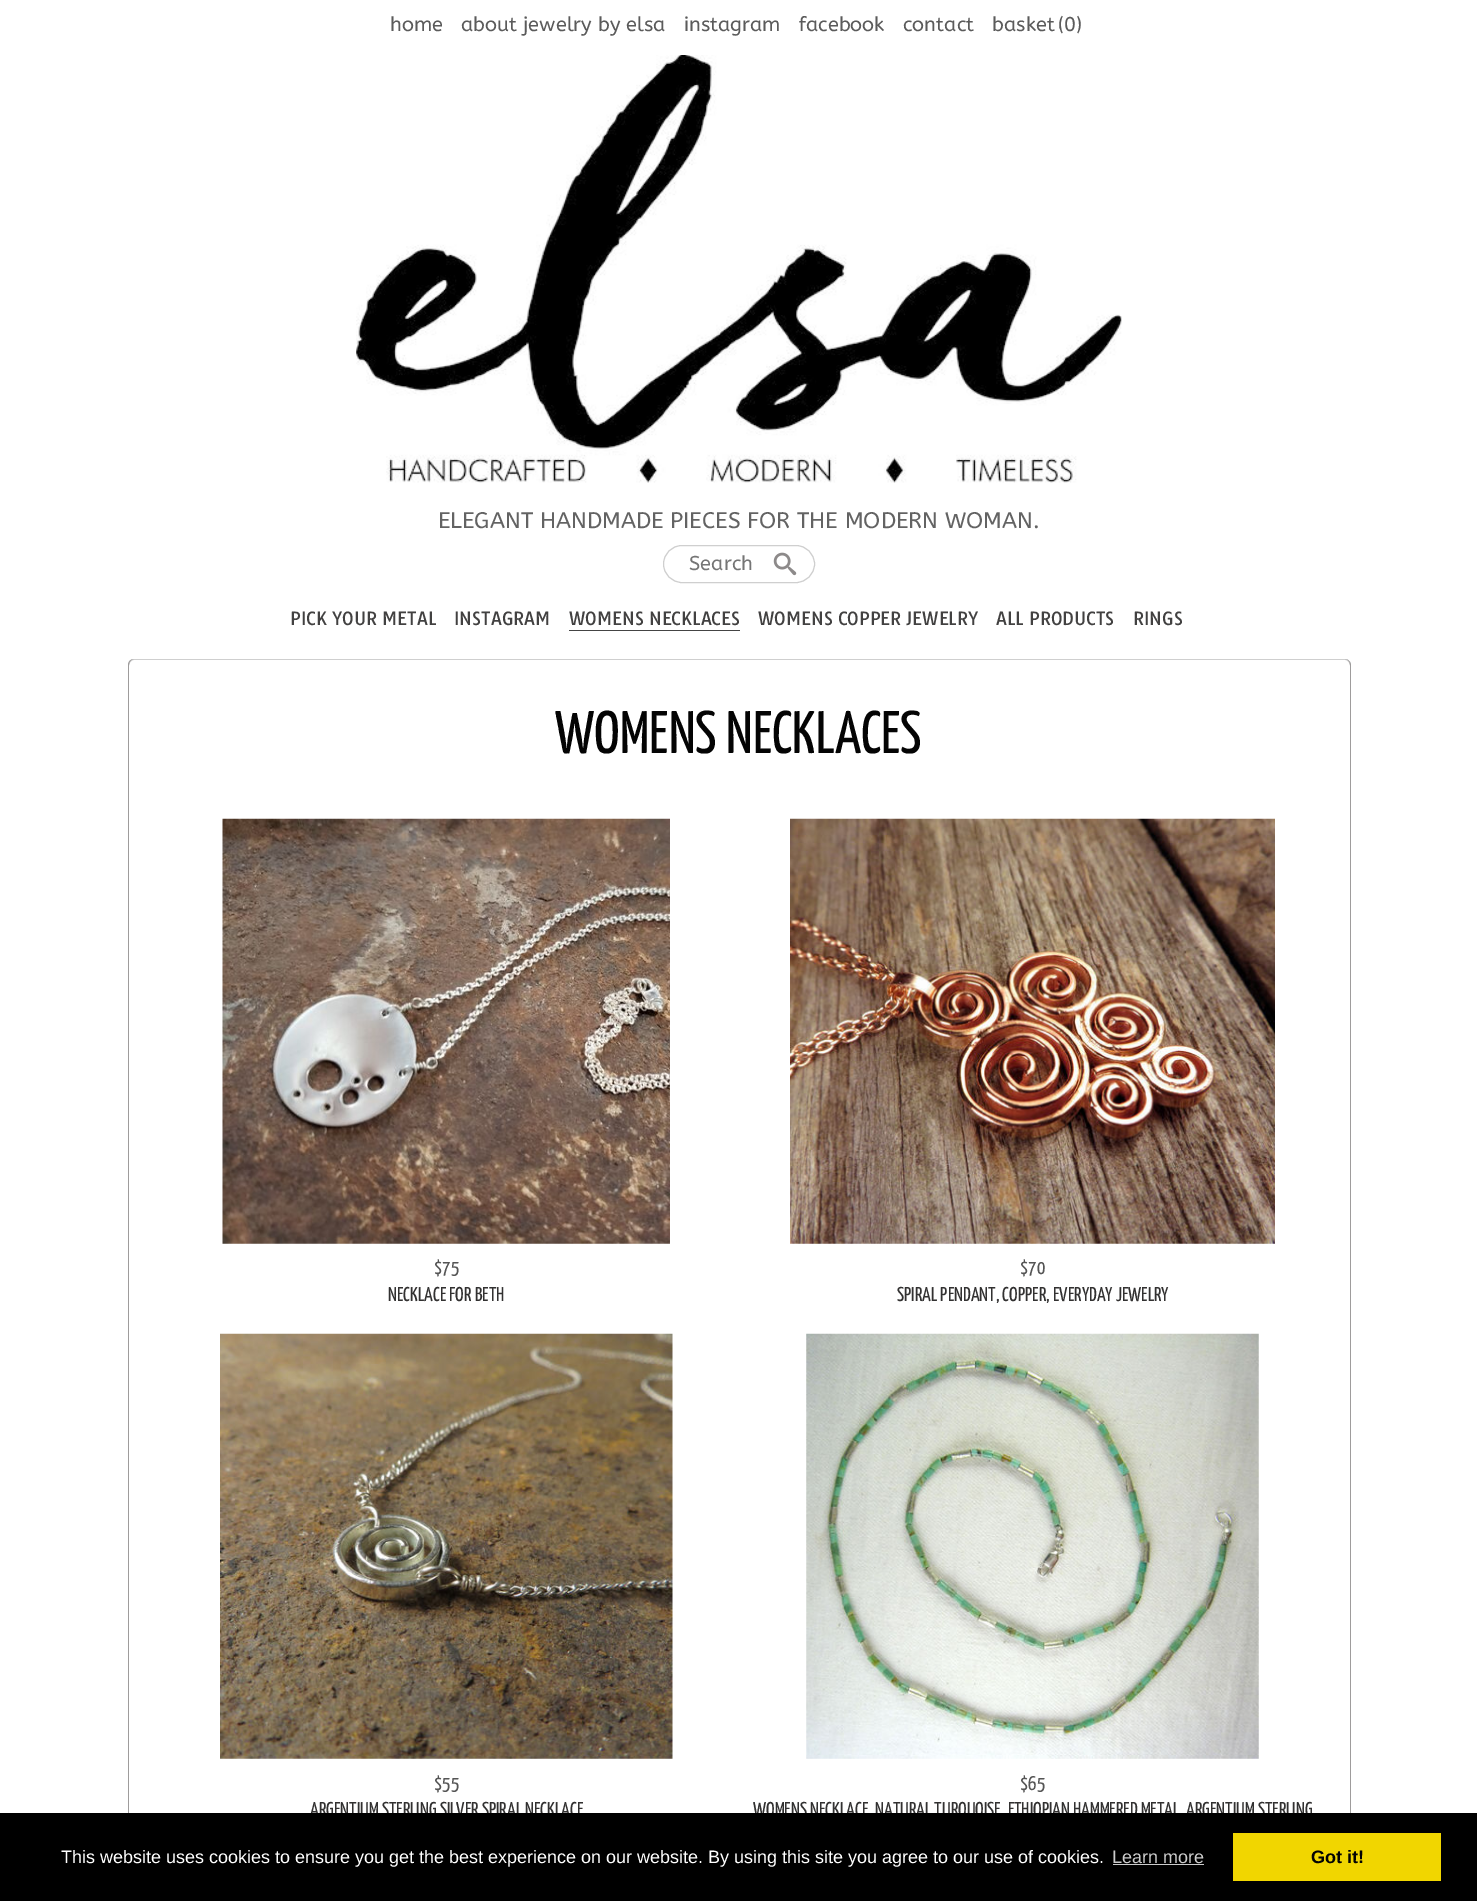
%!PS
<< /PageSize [1477 1901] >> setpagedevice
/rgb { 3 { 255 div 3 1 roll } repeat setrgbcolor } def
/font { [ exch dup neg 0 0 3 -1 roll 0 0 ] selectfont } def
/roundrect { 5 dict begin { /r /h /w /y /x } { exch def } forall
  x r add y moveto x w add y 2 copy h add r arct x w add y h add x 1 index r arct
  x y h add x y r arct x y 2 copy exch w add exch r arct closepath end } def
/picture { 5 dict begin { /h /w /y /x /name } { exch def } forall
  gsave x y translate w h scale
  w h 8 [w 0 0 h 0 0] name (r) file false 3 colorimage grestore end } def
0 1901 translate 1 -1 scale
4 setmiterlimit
255 255 255 rgb
0 0 1477 1901 rectfill
(img/1.rgb) 356 55 766 428 picture
207 207 207 rgb
663.5 545.5 151 37 18.5 roundrect stroke
(img/2.rgb) 773 552 24 24 picture
68 68 68 rgb
569 630 171 1 rectfill
207 207 207 rgb
134 660 moveto 1345 660 lineto 1348 660 1350 663 1350 666 curveto 1350 665 lineto 1350 662 1348 659 1345 659 curveto 134 659 lineto 131 659 129 662 129 665 curveto 129 1897 lineto 129 666 lineto 129 663 131 660 134 660 curveto closepath fill
158 156 156 rgb
134 659 moveto 1345 659 lineto 1348 659 1351 662 1351 665 curveto 1351 1895 lineto 1351 1898 1348 1901 1345 1901 curveto 134 1901 lineto 130 1901 128 1898 128 1895 curveto 128 665 lineto 128 662 130 659 134 659 curveto closepath 134 659 moveto 1345 659 lineto 1348 659 1350 662 1350 665 curveto 1350 1895 lineto 1350 1898 1348 1900 1345 1900 curveto 134 1900 lineto 131 1900 129 1898 129 1895 curveto 129 665 lineto 129 662 131 659 134 659 curveto closepath eofill
(img/3.rgb) 222 818 448 426 picture
(img/4.rgb) 790 818 485 426 picture
(img/5.rgb) 220 1333 453 426 picture
(img/6.rgb) 806 1333 453 426 picture
/ABeeZee-Regular 20 font
91 91 91 rgb
[
  [(home) 390 31]
  [(about jewelry by elsa) 461 31]
  [(instagram) 684 31]
  [(facebook) 799 31]
  [(contact) 903 31]
  [(basket) 992 31]
  [(\(0\)) 1058 31]
] { aload pop moveto show } forall
/ABeeZee-Regular 22.5 font
99 99 99 rgb
438 528 moveto (ELEGANT HANDMADE PIECES FOR THE MODERN WOMAN.) show
/ABeeZee-Regular 20 font
117 117 117 rgb
689 570 moveto (Search) show
/Tauri-Regular 17.5 font
66 65 65 rgb
[
  [(PICK YOUR METAL) 290 625]
  [(INSTAGRAM) 454 625]
  [(WOMENS NECKLACES) 569 625]
  [(WOMENS COPPER JEWELRY) 758 625]
  [(ALL PRODUCTS) 996 625]
  [(RINGS) 1133 625]
] { aload pop moveto show } forall
/YanoneKaffeesatz-Regular 60 font
4 4 4 rgb
555 753 moveto (WOMENS NECKLACES) show
/YanoneKaffeesatz-Regular 20 font
85 85 85 rgb
434 1274 moveto ($75) show
50 49 49 rgb
388 1301 moveto (NECKLACE FOR BETH) show
85 85 85 rgb
1020 1274 moveto ($70) show
50 49 49 rgb
897 1301 moveto (SPIRAL PENDANT, COPPER, EVERYDAY JEWELRY) show
85 85 85 rgb
434 1790 moveto ($55) show
50 49 49 rgb
310 1816 moveto (ARGENTIUM STERLING SILVER SPIRAL NECKLACE) show
85 85 85 rgb
1020 1790 moveto ($65) show
50 49 49 rgb
753 1816 moveto (WOMENS NECKLACE, NATURAL TURQUOISE, ETHIOPIAN HAMMERED METAL, ARGENTIUM STERLING) show
0 0 0 rgb
0 1813 1477 88 rectfill
/LiberationSans-Regular 18 font
255 255 255 rgb
61 1863 moveto (This website uses cookies to ensure you get the best experience on our website. By using this site you agree to our use of cookies.) show
204 204 204 rgb
1112 1863 moveto (Learn more) show
1113 1864 91 1 rectfill
241 214 0 rgb
1233 1833 208 48 rectfill
/LiberationSans-Bold 18 font
4 4 4 rgb
1311 1863 moveto (Got it!) show
showpage
